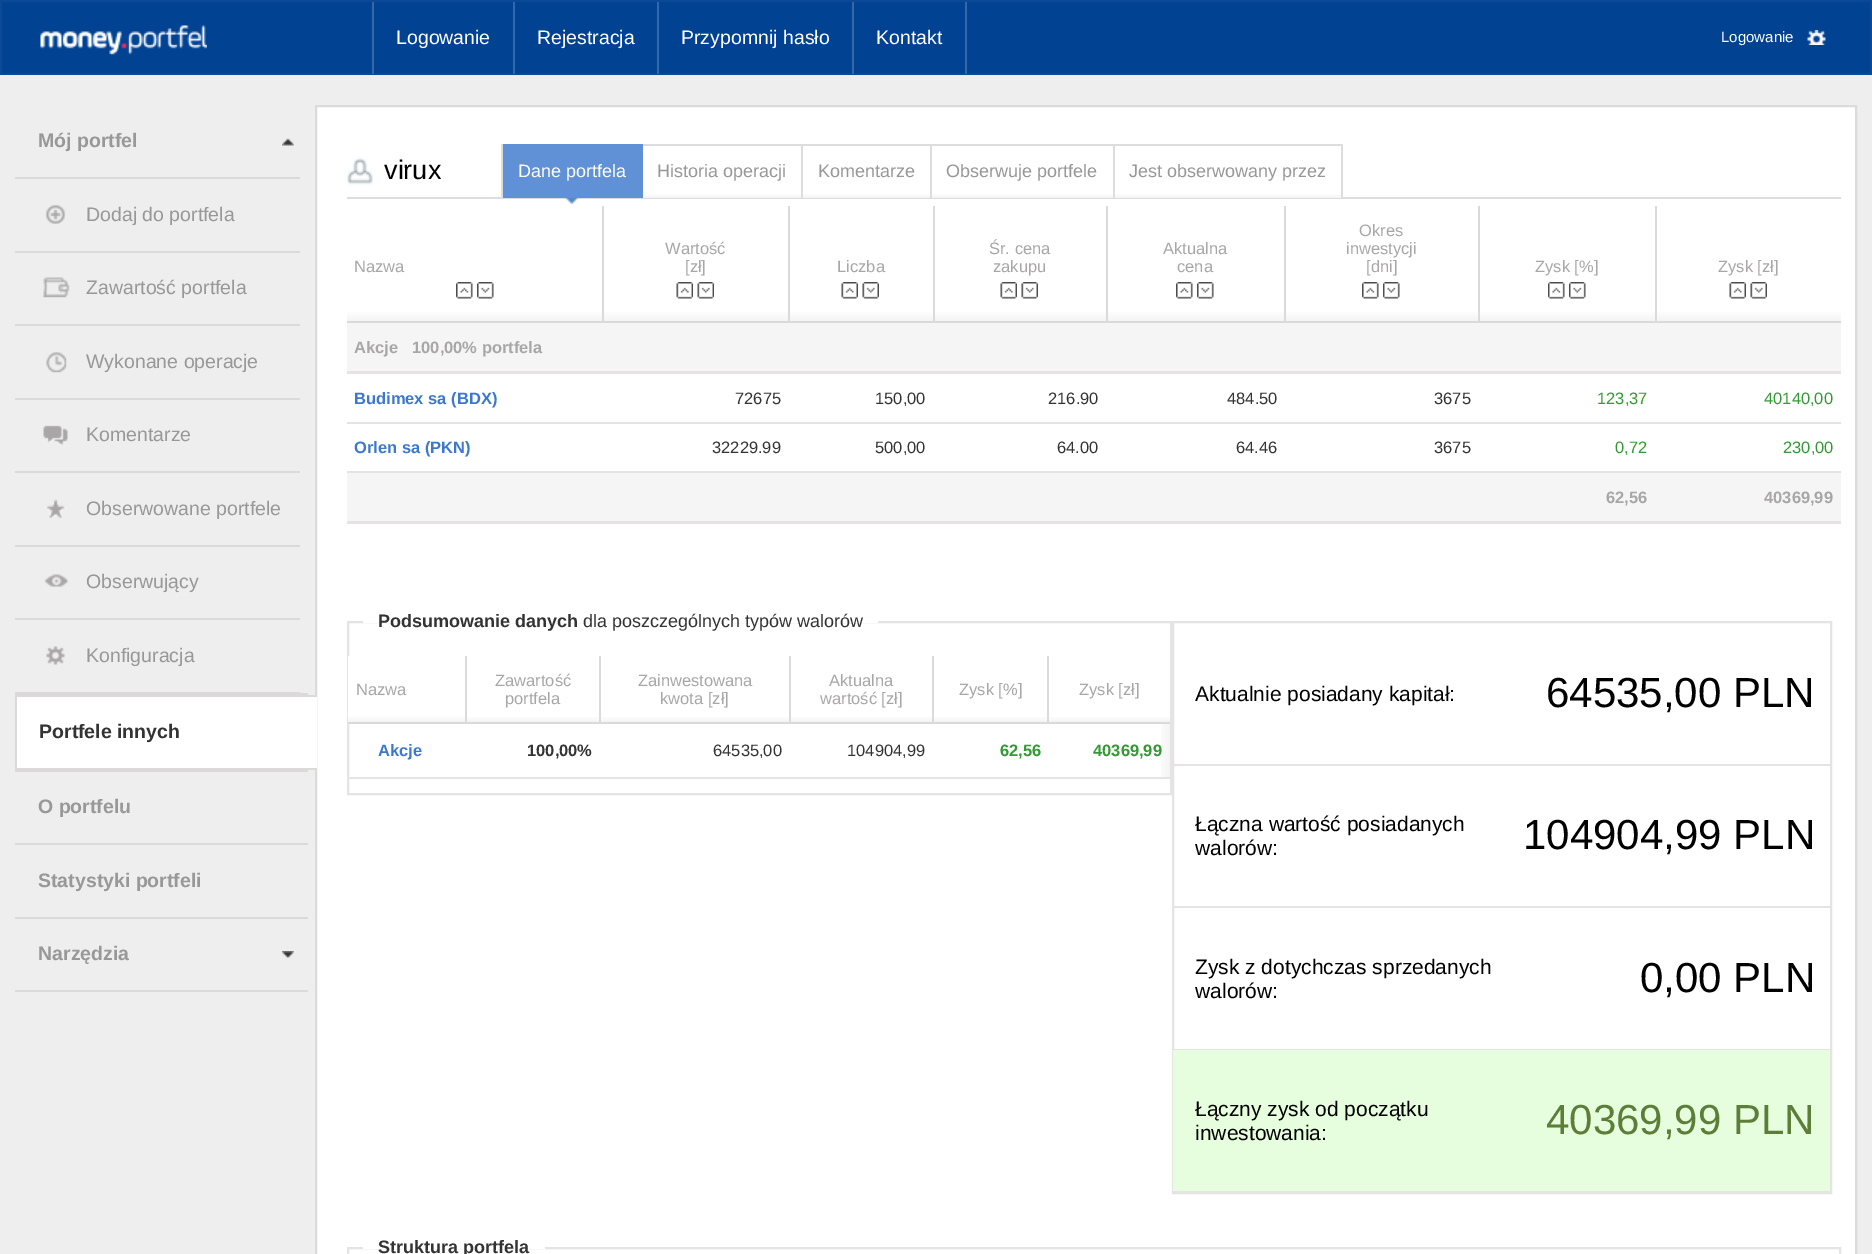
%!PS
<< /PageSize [1872 1254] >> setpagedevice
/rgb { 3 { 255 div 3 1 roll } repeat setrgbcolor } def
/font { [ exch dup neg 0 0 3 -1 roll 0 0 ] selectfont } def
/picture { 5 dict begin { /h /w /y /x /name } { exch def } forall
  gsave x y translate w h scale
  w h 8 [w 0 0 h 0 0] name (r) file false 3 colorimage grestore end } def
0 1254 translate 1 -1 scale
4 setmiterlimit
1 66 147 rgb
0 0 1872 1254 rectfill
11 73 151 rgb
2 setlinewidth
1 1 1870 73 rectstroke
(img/1.rgb) 40 25 167 30 picture
[
  [513 2 2 72 52 104 169]
  [372 2 2 72 52 104 169]
  [657 2 2 72 52 104 169]
  [852 2 2 72 52 104 169]
  [965 2 2 72 52 104 169]
] { aload pop rgb rectfill } forall
(img/2.rgb) 1807 30 19 15 picture
238 238 238 rgb
0 75 1872 1179 rectfill
219 217 218 rgb
15 693 293 2 rectfill
(img/3.rgb) 282 138 12 8 picture
220 217 217 rgb
15 177 285 2 rectfill
219 217 218 rgb
15 251 285 2 rectfill
(img/4.rgb) 45 204 21 21 picture
15 324 285 2 rectfill
(img/5.rgb) 43 277 27 21 picture
15 398 285 2 rectfill
(img/6.rgb) 46 352 21 21 picture
15 471 285 2 rectfill
(img/7.rgb) 43 425 25 21 picture
15 545 285 2 rectfill
(img/8.rgb) 45 499 21 20 picture
15 618 285 2 rectfill
(img/9.rgb) 44 574 24 13 picture
15 692 285 1 rectfill
(img/10.rgb) 46 646 19 19 picture
15 770 293 2 rectfill
255 255 255 rgb
316 106 moveto 1856 106 lineto 1856 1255 lineto 316 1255 lineto closepath gsave fill grestore
221 218 218 rgb
stroke
[
  [17 697 300 71 255 255 255]
  [15 695 302 2 220 217 217]
  [15 768 302 2 220 217 217]
  [15 695 2 75 220 217 217]
  [15 843 293 2 219 217 218]
  [15 917 293 2 219 217 218]
  [15 990 293 2 219 217 218]
] { aload pop rgb rectfill } forall
(img/11.rgb) 282 951 12 8 picture
221 221 221 rgb
347 197 1494 2 rectfill
(img/12.rgb) 347 157 27 28 picture
[
  [501 144 2 53 221 221 221]
  [642 144 701 2 221 221 221]
  [503 144 140 54 96 145 215]
] { aload pop rgb rectfill } forall
(img/13.rgb) 565 198 13 6 picture
gsave 643 194 moveto 801 194 lineto 801 198 lineto 643 198 lineto closepath clip newpath
<< /ShadingType 2 /ColorSpace /DeviceRGB /Coords [722 146 722 198] /Extend [true true] /Function << /FunctionType 3 /Domain [0 1] /Functions [<< /FunctionType 2 /Domain [0 1] /C0 [1 1 1] /C1 [1 1 1] /N 1 >> << /FunctionType 2 /Domain [0 1] /C0 [1 1 1] /C1 [0.961 0.957 0.957] /N 1 >>] /Bounds [0.9] /Encode [0 1 0 1] >> >> shfill grestore
221 221 221 rgb
801 144 2 54 rectfill
gsave 803 194 moveto 930 194 lineto 930 198 lineto 803 198 lineto closepath clip newpath
<< /ShadingType 2 /ColorSpace /DeviceRGB /Coords [866 146 866 198] /Extend [true true] /Function << /FunctionType 3 /Domain [0 1] /Functions [<< /FunctionType 2 /Domain [0 1] /C0 [1 1 1] /C1 [1 1 1] /N 1 >> << /FunctionType 2 /Domain [0 1] /C0 [1 1 1] /C1 [0.961 0.957 0.957] /N 1 >>] /Bounds [0.9] /Encode [0 1 0 1] >> >> shfill grestore
930 144 2 54 rectfill
gsave 932 194 moveto 1113 194 lineto 1113 198 lineto 932 198 lineto closepath clip newpath
<< /ShadingType 2 /ColorSpace /DeviceRGB /Coords [1022 146 1022 198] /Extend [true true] /Function << /FunctionType 3 /Domain [0 1] /Functions [<< /FunctionType 2 /Domain [0 1] /C0 [1 1 1] /C1 [1 1 1] /N 1 >> << /FunctionType 2 /Domain [0 1] /C0 [1 1 1] /C1 [0.961 0.957 0.957] /N 1 >>] /Bounds [0.9] /Encode [0 1 0 1] >> >> shfill grestore
1113 144 2 54 rectfill
gsave 1115 194 moveto 1341 194 lineto 1341 198 lineto 1115 198 lineto closepath clip newpath
<< /ShadingType 2 /ColorSpace /DeviceRGB /Coords [1228 145 1228 198] /Extend [true true] /Function << /FunctionType 3 /Domain [0 1] /Functions [<< /FunctionType 2 /Domain [0 1] /C0 [1 1 1] /C1 [1 1 1] /N 1 >> << /FunctionType 2 /Domain [0 1] /C0 [1 1 1] /C1 [0.961 0.957 0.957] /N 1 >>] /Bounds [0.9] /Encode [0 1 0 1] >> >> shfill grestore
1341 144 2 54 rectfill
gsave 347 312 moveto 602 312 lineto 602 321 lineto 347 321 lineto closepath clip newpath
<< /ShadingType 2 /ColorSpace /DeviceRGB /Coords [475 206 475 321] /Extend [true true] /Function << /FunctionType 3 /Domain [0 1] /Functions [<< /FunctionType 2 /Domain [0 1] /C0 [1 1 1] /C1 [1 1 1] /N 1 >> << /FunctionType 2 /Domain [0 1] /C0 [1 1 1] /C1 [0.961 0.957 0.957] /N 1 >>] /Bounds [0.9] /Encode [0 1 0 1] >> >> shfill grestore
[
  [1655 321 186 2 220 217 217]
  [1655 206 2 117 220 217 217]
  [1478 321 178 2 220 217 217]
  [1478 206 2 117 220 217 217]
  [1284 321 195 2 220 217 217]
  [1284 206 2 117 220 217 217]
  [1106 321 180 2 220 217 217]
  [1106 206 2 117 220 217 217]
  [933 321 174 2 220 217 217]
  [933 206 2 117 220 217 217]
  [788 321 147 2 220 217 217]
  [788 206 2 117 220 217 217]
  [602 321 187 2 220 217 217]
  [602 206 2 117 220 217 217]
  [347 321 256 2 220 217 217]
] { aload pop rgb rectfill } forall
(img/14.rgb) 456 282 17 17 picture
(img/15.rgb) 477 282 17 17 picture
gsave 604 312 moveto 788 312 lineto 788 321 lineto 604 321 lineto closepath clip newpath
<< /ShadingType 2 /ColorSpace /DeviceRGB /Coords [696 206 696 321] /Extend [true true] /Function << /FunctionType 3 /Domain [0 1] /Functions [<< /FunctionType 2 /Domain [0 1] /C0 [1 1 1] /C1 [1 1 1] /N 1 >> << /FunctionType 2 /Domain [0 1] /C0 [1 1 1] /C1 [0.961 0.957 0.957] /N 1 >>] /Bounds [0.9] /Encode [0 1 0 1] >> >> shfill grestore
(img/16.rgb) 676 282 17 17 picture
(img/17.rgb) 697 282 17 17 picture
gsave 790 312 moveto 933 312 lineto 933 321 lineto 790 321 lineto closepath clip newpath
<< /ShadingType 2 /ColorSpace /DeviceRGB /Coords [861 206 861 321] /Extend [true true] /Function << /FunctionType 3 /Domain [0 1] /Functions [<< /FunctionType 2 /Domain [0 1] /C0 [1 1 1] /C1 [1 1 1] /N 1 >> << /FunctionType 2 /Domain [0 1] /C0 [1 1 1] /C1 [0.961 0.957 0.957] /N 1 >>] /Bounds [0.9] /Encode [0 1 0 1] >> >> shfill grestore
(img/18.rgb) 841 282 17 17 picture
(img/19.rgb) 862 282 17 17 picture
gsave 935 312 moveto 1106 312 lineto 1106 321 lineto 935 321 lineto closepath clip newpath
<< /ShadingType 2 /ColorSpace /DeviceRGB /Coords [1020 206 1020 321] /Extend [true true] /Function << /FunctionType 3 /Domain [0 1] /Functions [<< /FunctionType 2 /Domain [0 1] /C0 [1 1 1] /C1 [1 1 1] /N 1 >> << /FunctionType 2 /Domain [0 1] /C0 [1 1 1] /C1 [0.961 0.957 0.957] /N 1 >>] /Bounds [0.9] /Encode [0 1 0 1] >> >> shfill grestore
(img/18.rgb) 1000 282 17 17 picture
(img/19.rgb) 1021 282 17 17 picture
gsave 1108 312 moveto 1284 312 lineto 1284 321 lineto 1108 321 lineto closepath clip newpath
<< /ShadingType 2 /ColorSpace /DeviceRGB /Coords [1196 206 1196 321] /Extend [true true] /Function << /FunctionType 3 /Domain [0 1] /Functions [<< /FunctionType 2 /Domain [0 1] /C0 [1 1 1] /C1 [1 1 1] /N 1 >> << /FunctionType 2 /Domain [0 1] /C0 [1 1 1] /C1 [0.961 0.957 0.957] /N 1 >>] /Bounds [0.9] /Encode [0 1 0 1] >> >> shfill grestore
(img/14.rgb) 1176 282 17 17 picture
(img/15.rgb) 1197 282 17 17 picture
gsave 1286 312 moveto 1478 312 lineto 1478 321 lineto 1286 321 lineto closepath clip newpath
<< /ShadingType 2 /ColorSpace /DeviceRGB /Coords [1382 206 1382 321] /Extend [true true] /Function << /FunctionType 3 /Domain [0 1] /Functions [<< /FunctionType 2 /Domain [0 1] /C0 [1 1 1] /C1 [1 1 1] /N 1 >> << /FunctionType 2 /Domain [0 1] /C0 [1 1 1] /C1 [0.961 0.957 0.957] /N 1 >>] /Bounds [0.9] /Encode [0 1 0 1] >> >> shfill grestore
(img/14.rgb) 1362 282 17 17 picture
(img/20.rgb) 1383 282 17 17 picture
gsave 1480 312 moveto 1655 312 lineto 1655 321 lineto 1480 321 lineto closepath clip newpath
<< /ShadingType 2 /ColorSpace /DeviceRGB /Coords [1567 206 1567 321] /Extend [true true] /Function << /FunctionType 3 /Domain [0 1] /Functions [<< /FunctionType 2 /Domain [0 1] /C0 [1 1 1] /C1 [1 1 1] /N 1 >> << /FunctionType 2 /Domain [0 1] /C0 [1 1 1] /C1 [0.961 0.957 0.957] /N 1 >>] /Bounds [0.9] /Encode [0 1 0 1] >> >> shfill grestore
(img/21.rgb) 1548 282 17 17 picture
(img/20.rgb) 1569 282 17 17 picture
gsave 1657 312 moveto 1841 312 lineto 1841 321 lineto 1657 321 lineto closepath clip newpath
<< /ShadingType 2 /ColorSpace /DeviceRGB /Coords [1748 206 1748 321] /Extend [true true] /Function << /FunctionType 3 /Domain [0 1] /Functions [<< /FunctionType 2 /Domain [0 1] /C0 [1 1 1] /C1 [1 1 1] /N 1 >> << /FunctionType 2 /Domain [0 1] /C0 [1 1 1] /C1 [0.961 0.957 0.957] /N 1 >>] /Bounds [0.9] /Encode [0 1 0 1] >> >> shfill grestore
(img/18.rgb) 1729 282 17 17 picture
(img/19.rgb) 1750 282 17 17 picture
[
  [347 323 1494 48 245 245 245]
  [347 371 1494 3 229 227 227]
  [347 422 1494 2 228 228 228]
  [347 471 1494 2 228 228 228]
  [347 473 1494 48 245 245 245]
  [347 521 1494 3 229 227 227]
] { aload pop rgb rectfill } forall
348 622 823 172 rectstroke
255 255 255 rgb
363 621 515 2 rectfill
gsave 348 656 moveto 465 656 lineto 465 722 lineto 348 722 lineto closepath clip newpath
<< /ShadingType 2 /ColorSpace /DeviceRGB /Coords [407 656 407 722] /Extend [true true] /Function << /FunctionType 3 /Domain [0 1] /Functions [<< /FunctionType 2 /Domain [0 1] /C0 [1 1 1] /C1 [1 1 1] /N 1 >> << /FunctionType 2 /Domain [0 1] /C0 [1 1 1] /C1 [0.961 0.957 0.957] /N 1 >>] /Bounds [0.9] /Encode [0 1 0 1] >> >> shfill grestore
[
  [1047 722 123 2 220 217 217]
  [1047 656 2 67 220 217 217]
  [932 722 117 2 220 217 217]
  [932 656 2 67 220 217 217]
  [789 722 144 2 220 217 217]
  [789 656 2 67 220 217 217]
  [599 722 192 2 220 217 217]
  [599 656 2 67 220 217 217]
  [465 722 135 2 220 217 217]
  [465 656 2 67 220 217 217]
  [348 722 119 2 220 217 217]
] { aload pop rgb rectfill } forall
gsave 467 717 moveto 599 717 lineto 599 722 lineto 467 722 lineto closepath clip newpath
<< /ShadingType 2 /ColorSpace /DeviceRGB /Coords [534 656 534 722] /Extend [true true] /Function << /FunctionType 3 /Domain [0 1] /Functions [<< /FunctionType 2 /Domain [0 1] /C0 [1 1 1] /C1 [1 1 1] /N 1 >> << /FunctionType 2 /Domain [0 1] /C0 [1 1 1] /C1 [0.961 0.957 0.957] /N 1 >>] /Bounds [0.9] /Encode [0 1 0 1] >> >> shfill grestore
gsave 601 717 moveto 789 717 lineto 789 722 lineto 601 722 lineto closepath clip newpath
<< /ShadingType 2 /ColorSpace /DeviceRGB /Coords [695 656 695 722] /Extend [true true] /Function << /FunctionType 3 /Domain [0 1] /Functions [<< /FunctionType 2 /Domain [0 1] /C0 [1 1 1] /C1 [1 1 1] /N 1 >> << /FunctionType 2 /Domain [0 1] /C0 [1 1 1] /C1 [0.961 0.957 0.957] /N 1 >>] /Bounds [0.9] /Encode [0 1 0 1] >> >> shfill grestore
gsave 791 717 moveto 932 717 lineto 932 722 lineto 791 722 lineto closepath clip newpath
<< /ShadingType 2 /ColorSpace /DeviceRGB /Coords [862 656 862 722] /Extend [true true] /Function << /FunctionType 3 /Domain [0 1] /Functions [<< /FunctionType 2 /Domain [0 1] /C0 [1 1 1] /C1 [1 1 1] /N 1 >> << /FunctionType 2 /Domain [0 1] /C0 [1 1 1] /C1 [0.961 0.957 0.957] /N 1 >>] /Bounds [0.9] /Encode [0 1 0 1] >> >> shfill grestore
gsave 934 717 moveto 1047 717 lineto 1047 722 lineto 934 722 lineto closepath clip newpath
<< /ShadingType 2 /ColorSpace /DeviceRGB /Coords [992 656 992 722] /Extend [true true] /Function << /FunctionType 3 /Domain [0 1] /Functions [<< /FunctionType 2 /Domain [0 1] /C0 [1 1 1] /C1 [1 1 1] /N 1 >> << /FunctionType 2 /Domain [0 1] /C0 [1 1 1] /C1 [0.961 0.957 0.957] /N 1 >>] /Bounds [0.9] /Encode [0 1 0 1] >> >> shfill grestore
gsave 1049 717 moveto 1170 717 lineto 1170 722 lineto 1049 722 lineto closepath clip newpath
<< /ShadingType 2 /ColorSpace /DeviceRGB /Coords [1110 656 1110 722] /Extend [true true] /Function << /FunctionType 3 /Domain [0 1] /Functions [<< /FunctionType 2 /Domain [0 1] /C0 [1 1 1] /C1 [1 1 1] /N 1 >> << /FunctionType 2 /Domain [0 1] /C0 [1 1 1] /C1 [0.961 0.957 0.957] /N 1 >>] /Bounds [0.9] /Encode [0 1 0 1] >> >> shfill grestore
gsave 1161 724 moveto 1170 724 lineto 1170 777 lineto 1161 777 lineto closepath clip newpath
<< /ShadingType 2 /ColorSpace /DeviceRGB /Coords [1049 750 1170 750] /Extend [true true] /Function << /FunctionType 3 /Domain [0 1] /Functions [<< /FunctionType 2 /Domain [0 1] /C0 [1 1 1] /C1 [1 1 1] /N 1 >> << /FunctionType 2 /Domain [0 1] /C0 [1 1 1] /C1 [0.961 0.957 0.957] /N 1 >>] /Bounds [0.9] /Encode [0 1 0 1] >> >> shfill grestore
228 228 228 rgb
348 777 822 2 rectfill
229 227 227 rgb
1173 622 658 571 rectstroke
[
  [1173 764 657 2 229 227 227]
  [1173 906 657 2 229 227 227]
  [1173 1049 657 1 229 227 227]
  [1173 1050 657 141 230 254 221]
  [1173 1191 657 1 229 227 227]
] { aload pop rgb rectfill } forall
348 1248 1492 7 rectstroke
255 255 255 rgb
363 1247 182 2 rectfill
/LiberationSans-Regular 19.5 font
[
  [(Logowanie) 396 44]
  [(Rejestracja) 537 44]
  [(Przypomnij hasło) 681 44]
  [(Kontakt) 876 44]
] { aload pop moveto show } forall
/LiberationSans-Regular 15 font
1721 42 moveto (Logowanie) show
/LiberationSans-Bold 19.5 font
152 152 152 rgb
38 147 moveto (Mój portfel) show
/LiberationSans-Regular 19.5 font
[
  [(Dodaj do portfela) 86 221]
  [(Zawartość portfela) 86 294]
  [(Wykonane operacje) 86 368]
  [(Komentarze) 86 441]
  [(Obserwowane portfele) 86 515]
  [(Obserwujący) 86 588]
  [(Konfiguracja) 86 662]
] { aload pop moveto show } forall
/LiberationSans-Bold 19.5 font
51 51 51 rgb
39 738 moveto (Portfele innych) show
152 152 152 rgb
[
  [(O portfelu) 38 813]
  [(Statystyki portfeli) 38 887]
  [(Narzędzia) 38 960]
] { aload pop moveto show } forall
/LiberationSans-Regular 27 font
0 0 0 rgb
384 179 moveto (virux) show
/LiberationSans-Regular 18 font
255 255 255 rgb
518 177 moveto (Dane portfela) show
152 152 152 rgb
[
  [(Historia operacji) 657 177]
  [(Komentarze) 818 177]
  [(Obserwuje portfele) 946 177]
  [(Jest obserwowany przez) 1129 177]
] { aload pop moveto show } forall
/LiberationSans-Regular 16.5 font
168 166 166 rgb
[
  [(Nazwa) 354 272]
  [(Wartość) 665 254]
  [([zł]) 685 272]
  [(Liczba) 837 272]
  [(Śr. cena) 989 254]
  [(zakupu) 993 272]
  [(Aktualna) 1163 254]
  [(cena) 1177 272]
  [(Okres) 1359 236]
  [(inwestycji) 1346 254]
  [([dni]) 1366 272]
  [(Zysk [%]) 1535 272]
  [(Zysk [zł]) 1718 272]
] { aload pop moveto show } forall
/LiberationSans-Bold 16.5 font
354 353 moveto (Akcje) show
412 353 moveto (100,00% portfela) show
59 120 206 rgb
354 404 moveto (Budimex sa \(BDX\)) show
/LiberationSans-Regular 16.5 font
51 51 51 rgb
[
  [(72675) 735 404]
  [(150,00) 875 404]
  [(216.90) 1048 404]
  [(484.50) 1227 404]
  [(3675) 1434 404]
] { aload pop moveto show } forall
51 153 51 rgb
1597 404 moveto (123,37) show
1764 404 moveto (40140,00) show
/LiberationSans-Bold 16.5 font
59 120 206 rgb
354 453 moveto (Orlen sa \(PKN\)) show
/LiberationSans-Regular 16.5 font
51 51 51 rgb
[
  [(32229.99) 712 453]
  [(500,00) 875 453]
  [(64.00) 1057 453]
  [(64.46) 1236 453]
  [(3675) 1434 453]
] { aload pop moveto show } forall
51 153 51 rgb
1615 453 moveto (0,72) show
1783 453 moveto (230,00) show
/LiberationSans-Bold 16.5 font
168 166 166 rgb
1606 503 moveto (62,56) show
1764 503 moveto (40369,99) show
/LiberationSans-Bold 18 font
51 51 51 rgb
378 627 moveto (Podsumowanie danych) show
/LiberationSans-Regular 18 font
583 627 moveto (dla poszczególnych typów walorów) show
/LiberationSans-Regular 16.5 font
168 166 166 rgb
[
  [(Nazwa) 356 695]
  [(Zawartość) 495 686]
  [(portfela) 505 704]
  [(Zainwestowana) 638 686]
  [(kwota [zł]) 660 704]
  [(Aktualna) 829 686]
  [(wartość [zł]) 820 704]
  [(Zysk [%]) 959 695]
  [(Zysk [zł]) 1079 695]
] { aload pop moveto show } forall
/LiberationSans-Bold 16.5 font
59 120 206 rgb
378 756 moveto (Akcje) show
51 51 51 rgb
527 756 moveto (100,00%) show
/LiberationSans-Regular 16.5 font
713 756 moveto (64535,00) show
847 756 moveto (104904,99) show
/LiberationSans-Bold 16.5 font
51 153 51 rgb
1000 756 moveto (62,56) show
1093 756 moveto (40369,99) show
/LiberationSans-Regular 21 font
0 0 0 rgb
1195 701 moveto (Aktualnie posiadany kapitał:) show
/LiberationSans-Regular 42 font
1546 707 moveto (64535,00 PLN) show
/LiberationSans-Regular 21 font
1195 831 moveto (Łączna wartość posiadanych) show
1195 855 moveto (walorów:) show
/LiberationSans-Regular 42 font
1523 849 moveto (104904,99 PLN) show
/LiberationSans-Regular 21 font
1195 974 moveto (Zysk z dotychczas sprzedanych) show
1195 998 moveto (walorów:) show
/LiberationSans-Regular 42 font
1640 992 moveto (0,00 PLN) show
/LiberationSans-Regular 21 font
1195 1116 moveto (Łączny zysk od początku) show
1195 1140 moveto (inwestowania:) show
/LiberationSans-Regular 42 font
93 126 57 rgb
1546 1134 moveto (40369,99 PLN) show
/LiberationSans-Bold 18 font
51 51 51 rgb
378 1253 moveto (Struktura portfela) show
showpage
